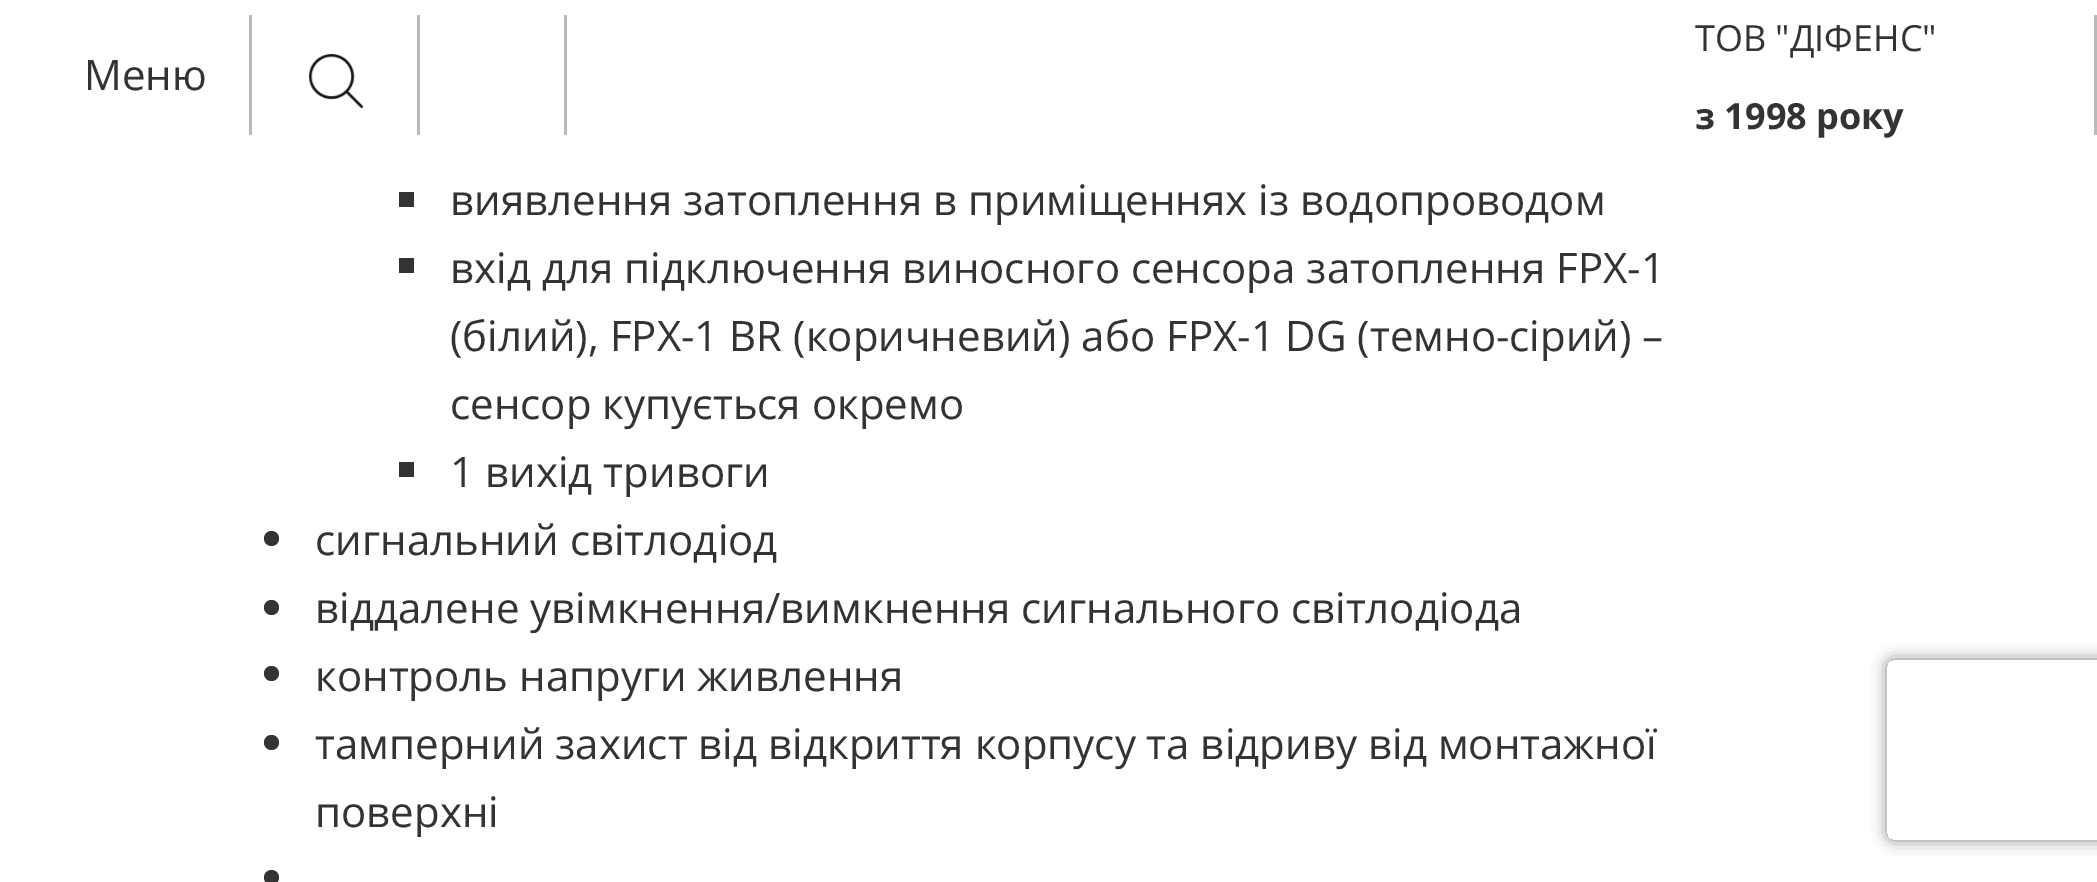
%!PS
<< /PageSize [2097 882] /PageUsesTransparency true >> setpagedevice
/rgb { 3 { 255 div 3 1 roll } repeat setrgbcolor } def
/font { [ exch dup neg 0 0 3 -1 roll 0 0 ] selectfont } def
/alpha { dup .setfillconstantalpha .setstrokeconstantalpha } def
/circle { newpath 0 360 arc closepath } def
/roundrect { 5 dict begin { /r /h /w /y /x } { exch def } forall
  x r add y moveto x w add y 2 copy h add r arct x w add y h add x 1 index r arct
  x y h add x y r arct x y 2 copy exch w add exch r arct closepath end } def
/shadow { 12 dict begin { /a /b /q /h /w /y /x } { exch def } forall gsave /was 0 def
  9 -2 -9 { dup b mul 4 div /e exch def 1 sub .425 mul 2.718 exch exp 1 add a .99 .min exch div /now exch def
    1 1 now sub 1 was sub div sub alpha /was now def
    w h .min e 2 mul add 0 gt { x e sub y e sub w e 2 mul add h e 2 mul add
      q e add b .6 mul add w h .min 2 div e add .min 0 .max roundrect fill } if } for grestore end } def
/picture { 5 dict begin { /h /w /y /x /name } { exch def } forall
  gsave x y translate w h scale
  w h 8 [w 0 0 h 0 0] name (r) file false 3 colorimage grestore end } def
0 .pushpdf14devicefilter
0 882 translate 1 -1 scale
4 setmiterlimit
255 255 255 rgb
0 0 2097 882 rectfill
185 185 185 rgb
249 15 3 120 rectfill
(img/1.rgb) 309 54 54 54 picture
[
  [417 15 3 120 185 185 185]
  [564 15 3 120 185 185 185]
  [2094 15 3 120 185 185 185]
  [399 192 15 15 51 51 51]
  [399 258 15 15 51 51 51]
  [399 462 15 15 51 51 51]
] { aload pop rgb rectfill } forall
271.5 538.5 7.5 circle fill
271.5 607.5 7.5 circle fill
271.5 673.5 7.5 circle fill
271.5 742.5 7.5 circle fill
271.5 877.5 7.5 circle fill
gsave
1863 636 moveto 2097 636 lineto 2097 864 lineto 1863 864 lineto closepath 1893 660 moveto 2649 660 lineto 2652.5 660 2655 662.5 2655 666 curveto 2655 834 lineto 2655 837.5 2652.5 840 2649 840 curveto 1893 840 lineto 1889.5 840 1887 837.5 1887 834 curveto 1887 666 lineto 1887 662.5 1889.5 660 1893 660 curveto closepath eoclip newpath
128 128 128 rgb
1887 660 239 180 6 7.5 1 shadow
grestore
/OpenSans-Regular 42 font
84 90 moveto (Меню) show
/OpenSans-Regular 36 font
1695 51 moveto (ТОВ "ДІФЕНС") show
/OpenSans-Bold 36 font
1695 129 moveto (з 1998 року) show
/OpenSans-Regular 42 font
[
  [(виявлення затоплення в приміщеннях із водопроводом) 450 215]
  [(вхід для підключення виносного сенсора затоплення FPX-1) 450 283]
  [(\(білий\), FPX-1 BR \(коричневий\) або FPX-1 DG \(темно-сірий\) –) 450 351]
  [(сенсор купується окремо) 450 419]
  [(1 вихід тривоги) 450 487]
  [(сигнальний світлодіод) 315 555]
  [(віддалене увімкнення/вимкнення сигнального світлодіода) 315 623]
  [(контроль напруги живлення) 315 691]
  [(тамперний захист від відкриття корпусу та відриву від монтажної) 315 759]
  [(поверхні) 315 827]
] { aload pop moveto show } forall
.poppdf14devicefilter showpage
